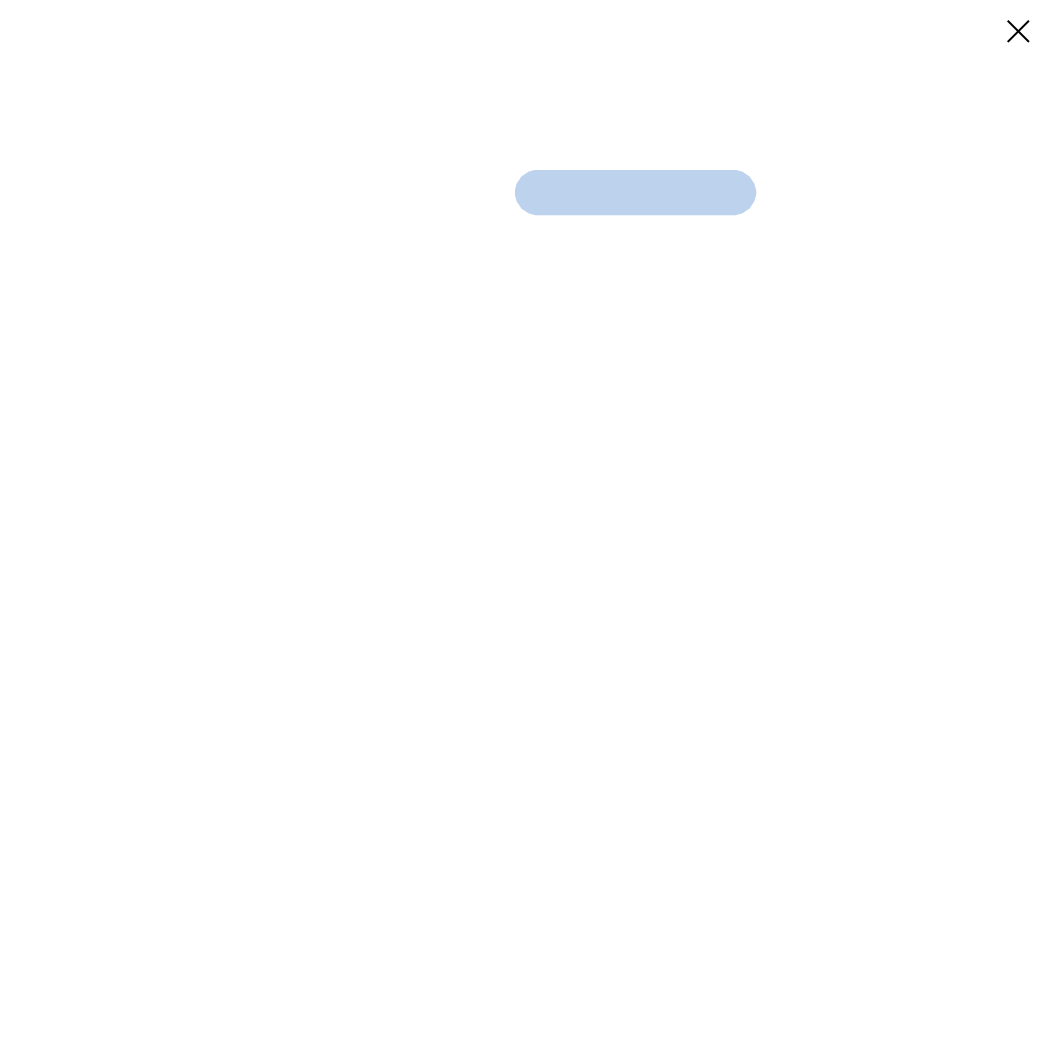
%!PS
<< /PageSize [1050 1038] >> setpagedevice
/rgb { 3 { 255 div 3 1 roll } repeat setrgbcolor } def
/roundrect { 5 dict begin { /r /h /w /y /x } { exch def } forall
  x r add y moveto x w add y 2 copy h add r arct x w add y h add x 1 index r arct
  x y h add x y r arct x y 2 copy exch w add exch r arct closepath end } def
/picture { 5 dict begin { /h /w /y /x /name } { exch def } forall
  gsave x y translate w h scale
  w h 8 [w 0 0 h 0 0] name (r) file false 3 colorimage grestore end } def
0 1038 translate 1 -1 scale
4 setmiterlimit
255 255 255 rgb
0 0 1050 1038 rectfill
(img/1.rgb) 1007 20 23 23 picture
189 210 237 rgb
516 171 239 43 21.5 roundrect gsave fill grestore
2 setlinewidth
stroke
showpage
